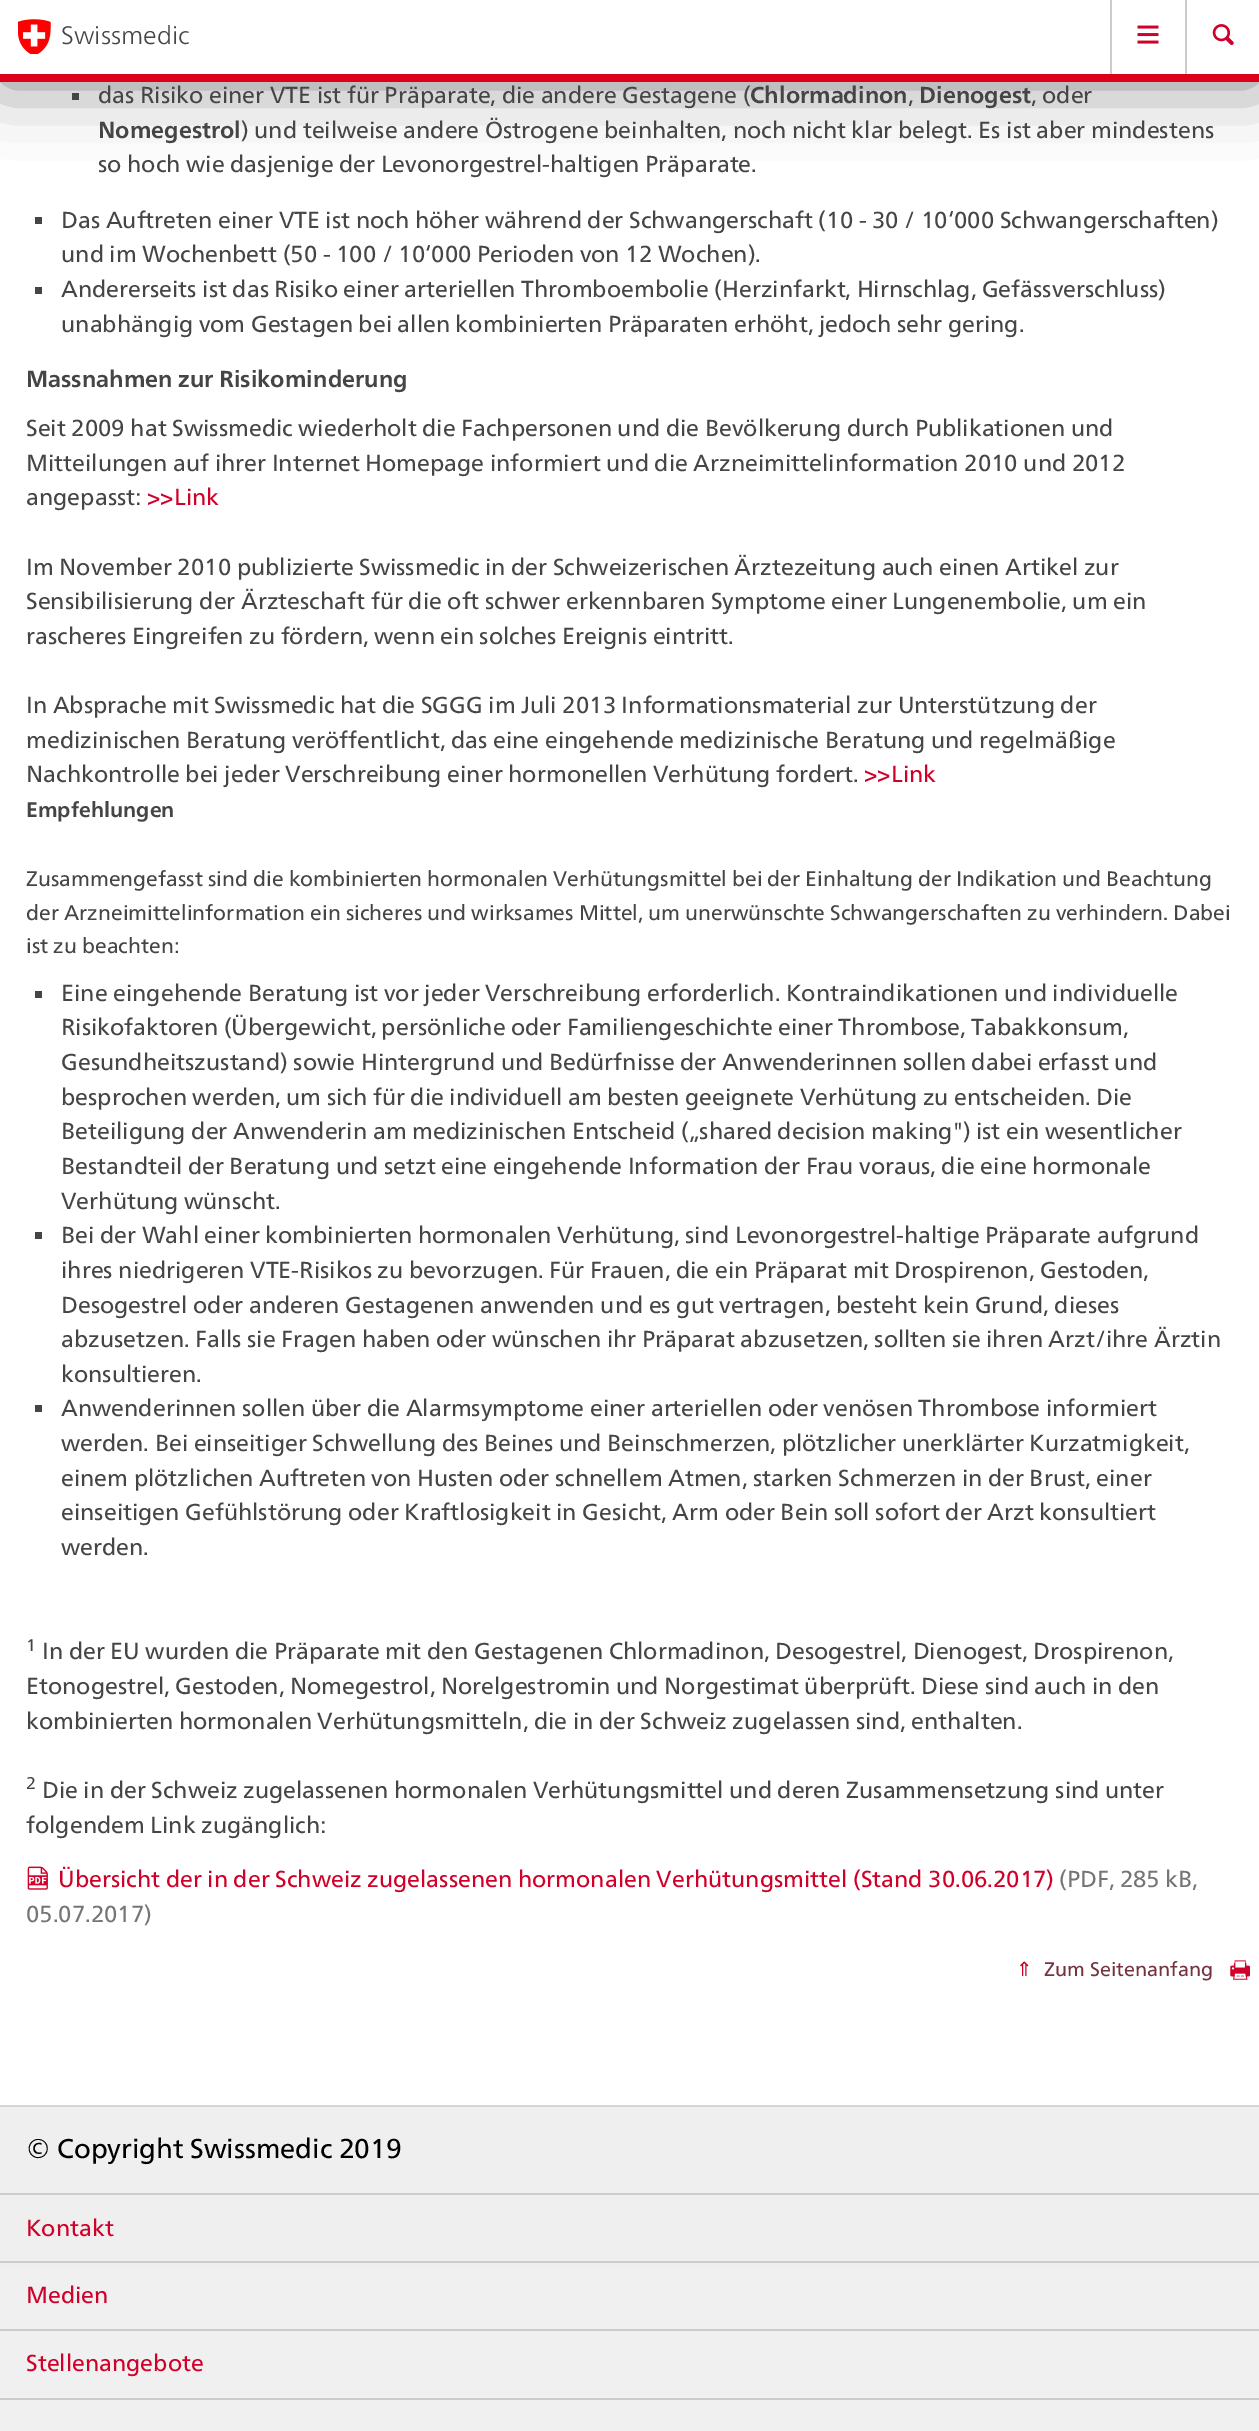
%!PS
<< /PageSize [1259 2431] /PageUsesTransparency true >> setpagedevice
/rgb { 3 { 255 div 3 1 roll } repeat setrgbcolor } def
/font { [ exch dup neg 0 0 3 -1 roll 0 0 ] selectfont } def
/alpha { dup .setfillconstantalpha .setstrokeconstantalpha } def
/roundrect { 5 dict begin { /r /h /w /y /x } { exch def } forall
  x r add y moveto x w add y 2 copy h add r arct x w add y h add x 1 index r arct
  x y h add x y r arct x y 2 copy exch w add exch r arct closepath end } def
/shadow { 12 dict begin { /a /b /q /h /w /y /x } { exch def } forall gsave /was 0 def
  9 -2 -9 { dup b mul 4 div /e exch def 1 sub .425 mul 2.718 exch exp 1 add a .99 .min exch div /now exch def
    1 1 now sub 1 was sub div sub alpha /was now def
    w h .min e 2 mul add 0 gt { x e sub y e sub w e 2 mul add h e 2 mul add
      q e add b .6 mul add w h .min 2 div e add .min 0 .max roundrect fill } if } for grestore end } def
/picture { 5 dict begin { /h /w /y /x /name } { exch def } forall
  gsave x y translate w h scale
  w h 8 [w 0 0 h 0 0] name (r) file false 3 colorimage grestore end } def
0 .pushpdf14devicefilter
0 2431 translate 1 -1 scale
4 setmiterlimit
255 255 255 rgb
0 0 1259 2431 rectfill
69 69 69 rgb
72 93 7 7 rectfill
0 0 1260 82 0 35 0.7 shadow
255 255 255 rgb
0 0 1259 74 rectfill
220 0 24 rgb
0 74 1259 8 rectfill
(img/1.rgb) 18 19 33 35 picture
204 204 204 rgb
1110 0 2 74 rectfill
(img/2.rgb) 1137 25 22 19 picture
1185 0 2 74 rectfill
(img/3.rgb) 1212 24 22 21 picture
[
  [35 217 7 7 69 69 69]
  [35 287 7 7 69 69 69]
  [35 991 7 7 69 69 69]
  [35 1232 7 7 69 69 69]
  [35 1405 7 7 69 69 69]
] { aload pop rgb rectfill } forall
(img/4.rgb) 27 1866 21 24 picture
(img/5.rgb) 1230 1960 20 20 picture
gsave 0 2107 moveto 1259 2107 lineto 1259 2431 lineto 0 2431 lineto closepath clip newpath
<< /ShadingType 2 /ColorSpace /DeviceRGB /Coords [630 2107 630 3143] /Extend [true true] /Function << /FunctionType 2 /Domain [0 1] /C0 [0.937 0.937 0.937] /C1 [0.969 0.969 0.969] /N 1 >> >> shfill grestore
[
  [0 2105 1259 2 213 213 213]
  [0 2193 1259 2 204 204 204]
  [0 2261 1259 2 204 204 204]
  [0 2329 1259 2 204 204 204]
  [0 2398 1259 2 204 204 204]
] { aload pop rgb rectfill } forall
/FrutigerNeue-Light 25.25 font
69 69 69 rgb
61 44 moveto (Swissmedic) show
/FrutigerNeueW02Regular-Regular 23.1 font
98 103 moveto (das Risiko einer VTE ist für Präparate, die andere Gestagene \() show
/FrutigerNeue-Bold 23.1 font
750 103 moveto (Chlormadinon) show
919 103 moveto (Dienogest) show
/FrutigerNeueW02Regular-Regular 23.1 font
1031 103 moveto (, oder) show
908 103 moveto (,) show
/FrutigerNeue-Bold 23.1 font
98 138 moveto (Nomegestrol) show
/FrutigerNeueW02Regular-Regular 23.1 font
[
  [(\) und teilweise andere Östrogene beinhalten, noch nicht klar belegt. Es ist aber mindestens) 241 138]
  [(so hoch wie dasjenige der Levonorgestrel-haltigen Präparate.) 98 172]
  [(Das Auftreten einer VTE ist noch höher während der Schwangerschaft \(10 - 30 / 10‘000 Schwangerschaften\)) 61 228]
  [(und im Wochenbett \(50 - 100 / 10‘000 Perioden von 12 Wochen\).) 61 262]
  [(Andererseits ist das Risiko einer arteriellen Thromboembolie \(Herzinfarkt, Hirnschlag, Gefässverschluss\)) 61 297]
  [(unabhängig vom Gestagen bei allen kombinierten Präparaten erhöht, jedoch sehr gering.) 61 332]
] { aload pop moveto show } forall
/FrutigerNeue-Bold 23.1 font
26 387 moveto (Massnahmen zur Risikominderung) show
/FrutigerNeueW02Regular-Regular 23.1 font
[
  [(Seit 2009 hat Swissmedic wiederholt die Fachpersonen und die Bevölkerung durch Publikationen und) 26 436]
  [(Mitteilungen auf ihrer Internet Homepage informiert und die Arzneimittelinformation 2010 und 2012) 26 471]
  [(angepasst:) 26 505]
] { aload pop moveto show } forall
207 0 41 rgb
147 505 moveto (>>Link) show
69 69 69 rgb
[
  [(Im November 2010 publizierte Swissmedic in der Schweizerischen Ärztezeitung auch einen Artikel zur) 26 575]
  [(Sensibilisierung der Ärzteschaft für die oft schwer erkennbaren Symptome einer Lungenembolie, um ein) 26 609]
  [(rascheres Eingreifen zu fördern, wenn ein solches Ereignis eintritt.) 26 644]
  [(In Absprache mit Swissmedic hat die SGGG im Juli 2013 Informationsmaterial zur Unterstützung der) 26 713]
  [(medizinischen Beratung veröffentlicht, das eine eingehende medizinische Beratung und regelmäßige) 26 748]
  [(Nachkontrolle bei jeder Verschreibung einer hormonellen Verhütung fordert.) 26 782]
] { aload pop moveto show } forall
207 0 41 rgb
864 782 moveto (>>Link) show
/FrutigerNeue-Bold 21 font
69 69 69 rgb
26 817 moveto (Empfehlungen) show
/FrutigerNeueW02Regular-Regular 21 font
[
  [(Zusammengefasst sind die kombinierten hormonalen Verhütungsmittel bei der Einhaltung der Indikation und Beachtung) 26 886]
  [(der Arzneimittelinformation ein sicheres und wirksames Mittel, um unerwünschte Schwangerschaften zu verhindern. Dabei) 26 920]
  [(ist zu beachten:) 26 953]
] { aload pop moveto show } forall
/FrutigerNeueW02Regular-Regular 23.1 font
61 1001 moveto (Eine eingehende Beratung ist vor jeder Verschreibung erforderlich. Kontraindikationen und individuelle) show
61 1035 moveto -0.25 0 32 (Risikofaktoren \(Übergewicht, persönliche oder Familiengeschichte einer Thrombose, Tabakkonsum,) widthshow
[
  [(Gesundheitszustand\) sowie Hintergrund und Bedürfnisse der Anwenderinnen sollen dabei erfasst und) 61 1070]
  [(besprochen werden, um sich für die individuell am besten geeignete Verhütung zu entscheiden. Die) 61 1105]
  [(Beteiligung der Anwenderin am medizinischen Entscheid \(„shared decision making"\) ist ein wesentlicher) 61 1139]
  [(Bestandteil der Beratung und setzt eine eingehende Information der Frau voraus, die eine hormonale) 61 1174]
  [(Verhütung wünscht.) 61 1209]
  [(Bei der Wahl einer kombinierten hormonalen Verhütung, sind Levonorgestrel-haltige Präparate aufgrund) 61 1243]
  [(ihres niedrigeren VTE-Risikos zu bevorzugen. Für Frauen, die ein Präparat mit Drospirenon, Gestoden,) 61 1278]
  [(Desogestrel oder anderen Gestagenen anwenden und es gut vertragen, besteht kein Grund, dieses) 61 1313]
  [(abzusetzen. Falls sie Fragen haben oder wünschen ihr Präparat abzusetzen, sollten sie ihren Arzt/ihre Ärztin) 61 1347]
  [(konsultieren.) 61 1382]
  [(Anwenderinnen sollen über die Alarmsymptome einer arteriellen oder venösen Thrombose informiert) 61 1416]
  [(werden. Bei einseitiger Schwellung des Beines und Beinschmerzen, plötzlicher unerklärter Kurzatmigkeit,) 61 1451]
  [(einem plötzlichen Auftreten von Husten oder schnellem Atmen, starken Schmerzen in der Brust, einer) 61 1486]
  [(einseitigen Gefühlstörung oder Kraftlosigkeit in Gesicht, Arm oder Bein soll sofort der Arzt konsultiert) 61 1520]
  [(werden.) 61 1555]
] { aload pop moveto show } forall
/FrutigerNeueW02Regular-Regular 17 font
26 1651 moveto (1) show
/FrutigerNeueW02Regular-Regular 23.1 font
[
  [(In der EU wurden die Präparate mit den Gestagenen Chlormadinon, Desogestrel, Dienogest, Drospirenon,) 42 1659]
  [(Etonogestrel, Gestoden, Nomegestrol, Norelgestromin und Norgestimat überprüft. Diese sind auch in den) 26 1694]
  [(kombinierten hormonalen Verhütungsmitteln, die in der Schweiz zugelassen sind, enthalten.) 26 1729]
] { aload pop moveto show } forall
/FrutigerNeueW02Regular-Regular 17 font
26 1789 moveto (2) show
/FrutigerNeueW02Regular-Regular 23.1 font
42 1798 moveto (Die in der Schweiz zugelassenen hormonalen Verhütungsmittel und deren Zusammensetzung sind unter) show
26 1833 moveto (folgendem Link zugänglich:) show
207 0 41 rgb
58 1887 moveto (Übersicht der in der Schweiz zugelassenen hormonalen Verhütungsmittel \(Stand 30.06.2017\)) show
117 117 117 rgb
1059 1887 moveto (\(PDF, 285 kB,) show
26 1922 moveto (05.07.2017\)) show
/DejaVuSans-Regular 19.75 font
207 0 41 rgb
1016 1976 moveto (⇑) show
/FrutigerNeueW02Regular-Regular 19.75 font
118 50 63 rgb
1044 1976 moveto (Zum Seitenanfang) show
/FrutigerNeueW02Regular-Regular 27.25 font
0 0 0 rgb
26 2158 moveto (© Copyright Swissmedic 2019) show
/FrutigerNeueW02Regular-Regular 23.1 font
207 0 41 rgb
[
  [(Kontakt) 26 2236]
  [(Medien) 26 2303]
  [(Stellenangebote) 26 2371]
] { aload pop moveto show } forall
.poppdf14devicefilter showpage
